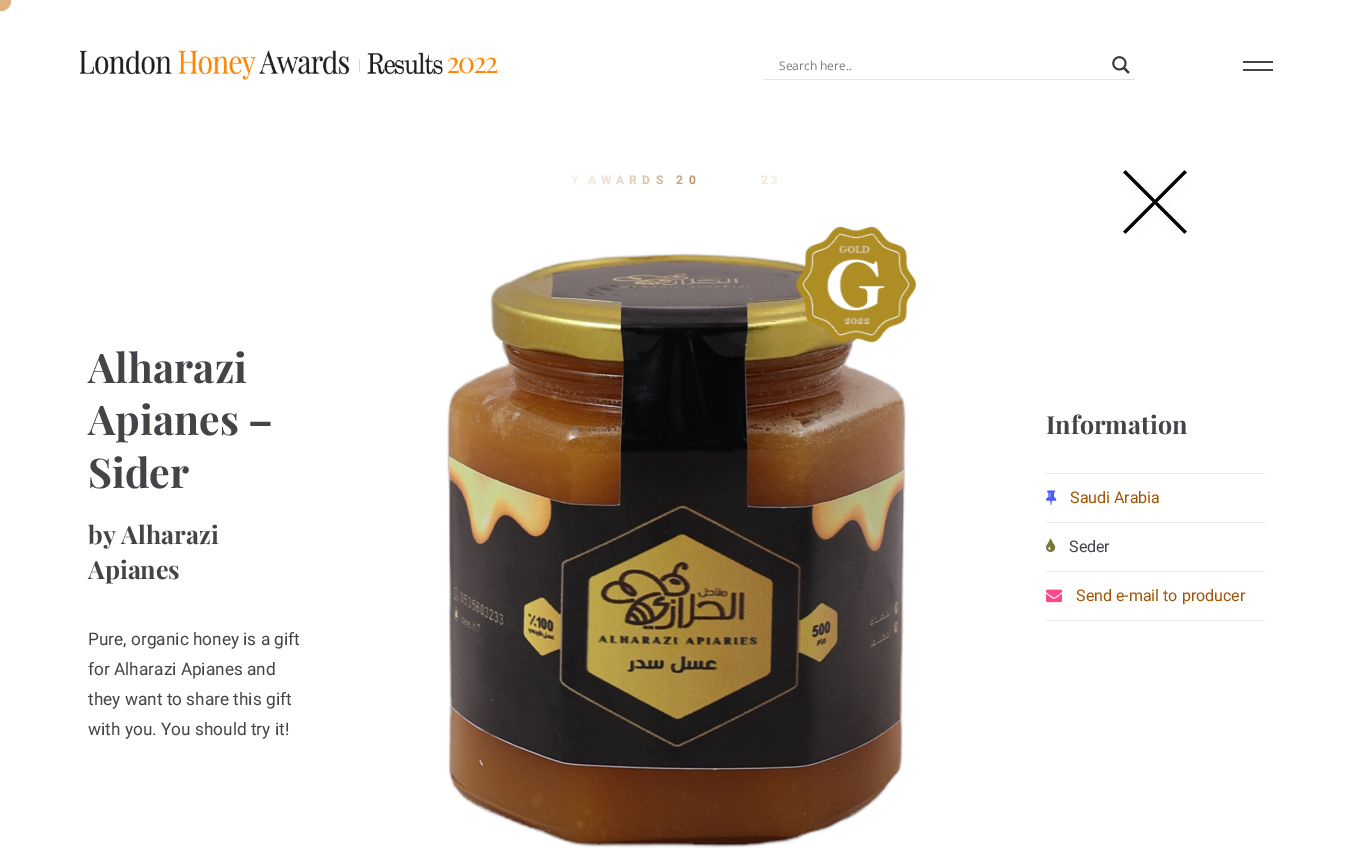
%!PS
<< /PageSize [1353 868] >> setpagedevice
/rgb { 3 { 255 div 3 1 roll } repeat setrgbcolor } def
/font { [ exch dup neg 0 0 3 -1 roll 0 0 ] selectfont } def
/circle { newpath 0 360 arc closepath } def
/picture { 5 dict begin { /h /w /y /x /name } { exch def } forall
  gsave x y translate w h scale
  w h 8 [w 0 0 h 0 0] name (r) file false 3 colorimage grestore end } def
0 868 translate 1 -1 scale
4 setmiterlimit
255 255 255 rgb
0 0 1353 868 rectfill
223 177 128 rgb
1 1 10 circle fill
(img/1.rgb) 80 50 418 30 picture
228 228 228 rgb
764 79 371 1 rectfill
(img/2.rgb) 1112 56 18 18 picture
68 68 68 rgb
1243 61 30 2 rectfill
1243 69 30 2 rectfill
(img/4.rgb) 447 253 459 595 picture
(img/3.rgb) 796 227 120 116 picture
(img/5.rgb) 1123 170 64 64 picture
232 232 232 rgb
1046 473 219 1 rectfill
1046 522 219 1 rectfill
(img/6.rgb) 1046 490 11 16 picture
1046 571 219 1 rectfill
(img/7.rgb) 1046 538 10 14 picture
1046 620 219 1 rectfill
(img/8.rgb) 1046 589 16 14 picture
/OpenSans-Regular 12 font
125 125 125 rgb
779 70 moveto (Search here..) show
/Roboto-Bold 12 font
245 237 229 rgb
571 184 moveto 2 0 (Y) ashow
241 230 218 rgb
588 184 moveto 2 0 (A) ashow
237 222 207 rgb
601 184 moveto 2 0 (W) ashow
232 213 194 rgb
616 184 moveto 2 0 (A) ashow
227 204 180 rgb
629 184 moveto 2 0 (R) ashow
221 193 164 rgb
642 184 moveto 2 0 (D) ashow
215 181 147 rgb
656 184 moveto 2 0 (S) ashow
204 161 117 rgb
676 184 moveto 2 0 (2) ashow
197 149 100 rgb
689 184 moveto 2 0 (0) ashow
241 230 218 rgb
761 184 moveto 2 0 (2) ashow
245 237 229 rgb
771 184 moveto 2 0 (2) ashow
/PlayfairDisplay-Bold 41 font
66 68 71 rgb
[
  [(Alharazi) 88 383]
  [(Apianes –) 88 435]
  [(Sider) 88 488]
] { aload pop moveto show } forall
/PlayfairDisplay-Bold 25 font
88 544 moveto (by Alharazi) show
88 579 moveto (Apianes) show
/Roboto-Regular 17.25 font
[
  [(Pure, organic honey is a gift) 88 645]
  [(for Alharazi Apianes and) 88 675]
  [(they want to share this gift) 88 705]
  [(with you. You should try it!) 88 735]
] { aload pop moveto show } forall
/PlayfairDisplay-Bold 25 font
1046 434 moveto (Information) show
/Roboto-Regular 16 font
162 85 5 rgb
1070 503 moveto (Saudi Arabia) show
66 68 71 rgb
1069 552 moveto (Seder) show
162 85 5 rgb
1076 601 moveto (Send e-mail to producer) show
showpage
